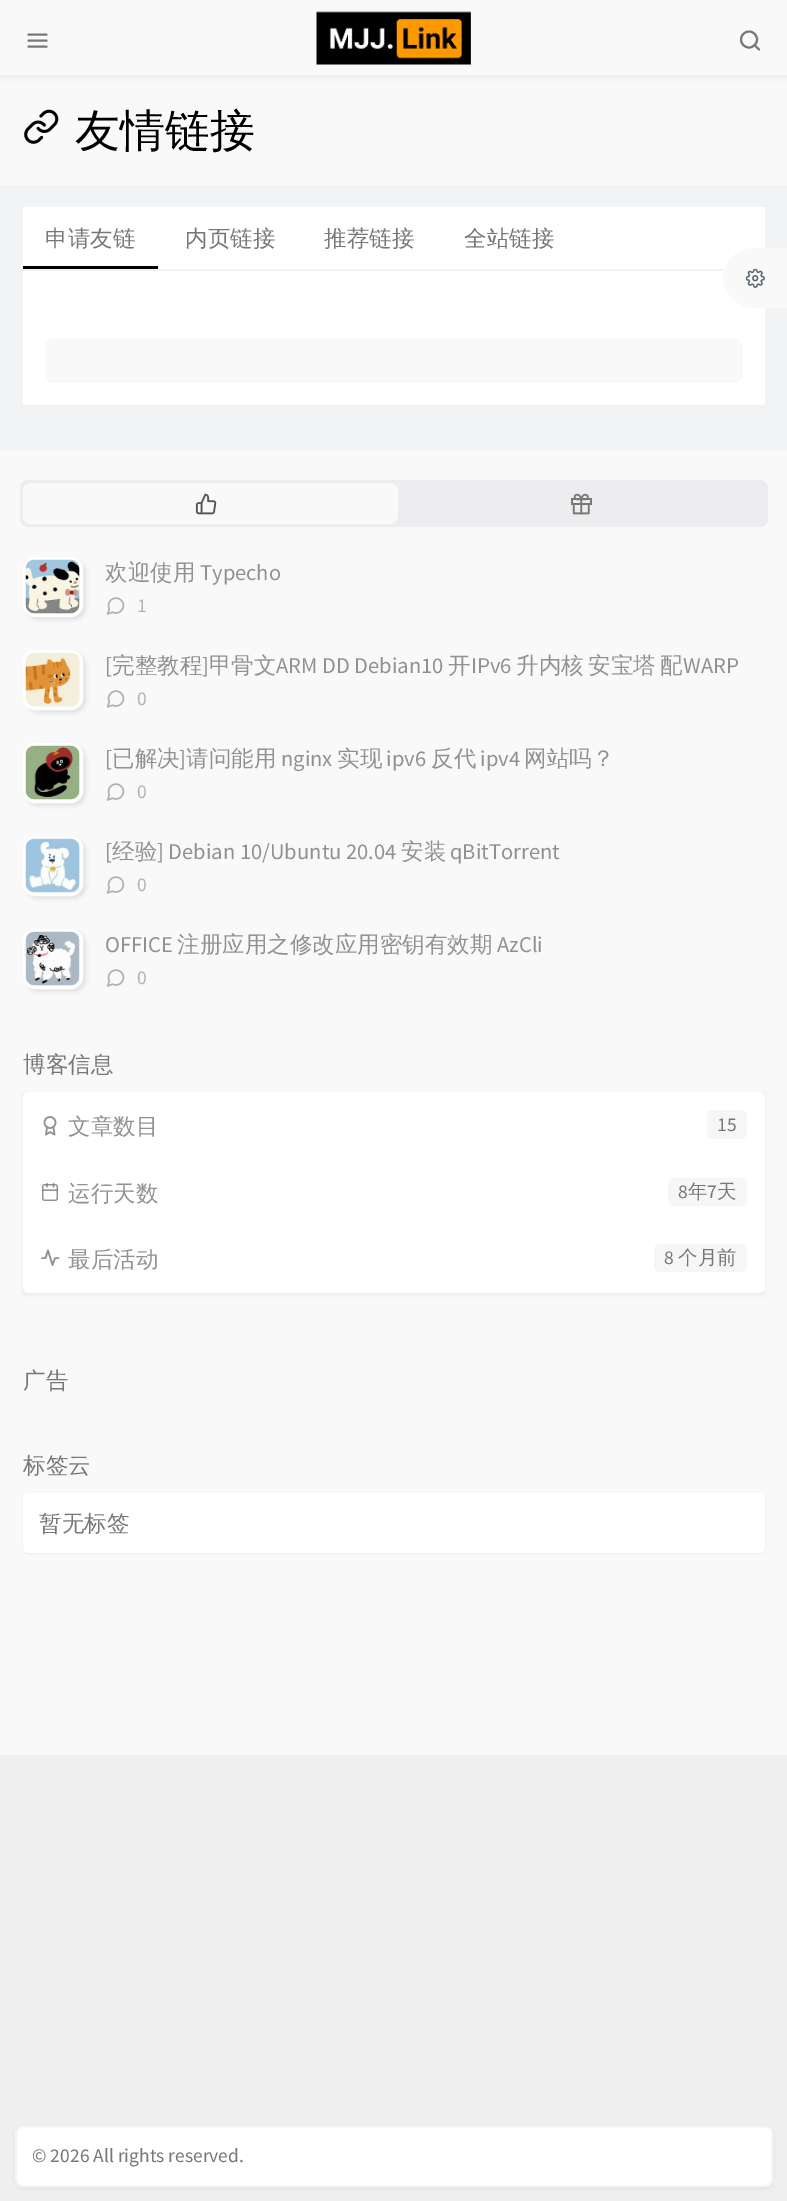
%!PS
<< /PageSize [787 2201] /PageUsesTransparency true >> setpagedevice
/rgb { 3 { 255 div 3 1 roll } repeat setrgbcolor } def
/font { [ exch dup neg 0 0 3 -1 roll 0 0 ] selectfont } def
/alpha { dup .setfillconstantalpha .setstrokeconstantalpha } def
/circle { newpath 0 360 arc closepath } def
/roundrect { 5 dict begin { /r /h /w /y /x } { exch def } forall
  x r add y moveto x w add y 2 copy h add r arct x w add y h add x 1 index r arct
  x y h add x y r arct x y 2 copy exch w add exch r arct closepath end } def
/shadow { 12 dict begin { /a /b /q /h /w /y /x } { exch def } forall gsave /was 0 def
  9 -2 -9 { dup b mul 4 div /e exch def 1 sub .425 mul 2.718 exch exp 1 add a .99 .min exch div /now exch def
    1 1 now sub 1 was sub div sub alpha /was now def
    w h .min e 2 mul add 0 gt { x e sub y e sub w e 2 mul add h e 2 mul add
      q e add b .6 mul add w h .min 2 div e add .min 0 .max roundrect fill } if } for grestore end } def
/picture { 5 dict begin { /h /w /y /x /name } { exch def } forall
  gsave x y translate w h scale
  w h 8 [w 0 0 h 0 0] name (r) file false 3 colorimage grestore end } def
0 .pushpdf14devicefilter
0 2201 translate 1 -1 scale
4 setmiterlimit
239 239 239 rgb
0 0 787 2201 rectfill
249 249 249 rgb
0 75 787 110 rectfill
0 0 0 rgb
-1 0 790 78 0 4 0.05 shadow
249 249 249 rgb
0 0 787 75 rectfill
119 119 119 rgb
2 setlinewidth
1 setlinecap
1 setlinejoin
28.5 40.5 moveto 46.5 40.5 lineto 28.5 34.5 moveto 46.5 34.5 lineto 28.5 46.5 moveto 46.5 46.5 lineto stroke
(img/1.rgb) 316 11 155 54 picture
0 setlinecap
0 setlinejoin
749 39.5 8 circle stroke
1 setlinecap
1 setlinejoin
759 49.5 moveto 754.5 45 lineto stroke
241 243 244 rgb
0 185 787 265 rectfill
(img/2.rgb) 24 109 35 35 picture
255 255 255 rgb
23 207 742 62 rectfill
23 270 moveto 765 270 lineto 765 402 lineto 765 403.5 763.5 405 762 405 curveto 26 405 lineto 24.5 405 23 403.5 23 402 curveto closepath fill
240 243 244 rgb
23 270 702 1 rectfill
0 0 0 rgb
23 266 135 3 rectfill
249 249 249 rgb
45 338 698 45 9 roundrect fill
0 450 787 1305 rectfill
237 236 238 rgb
20 480 748 47 8 roundrect fill
249 249 249 rgb
23 483 375 41 8 roundrect fill
(img/3.rgb) 195 493 22 22 picture
(img/4.rgb) 571 493 21 22 picture
225 225 225 rgb
26 560 60 60 12 2 1 shadow
255 255 255 rgb
3 setlinewidth
0 setlinecap
0 setlinejoin
24.5 558.5 57 57 10.5 roundrect stroke
(img/5.rgb) 25 559 55 55 picture
(img/6.rgb) 106 597 19 18 picture
225 225 225 rgb
26 653 60 60 12 2 1 shadow
255 255 255 rgb
24.5 651.5 57 57 10.5 roundrect stroke
(img/7.rgb) 25 652 55 55 picture
(img/6.rgb) 106 690 19 18 picture
225 225 225 rgb
26 746 60 60 12 2 1 shadow
255 255 255 rgb
24.5 744.5 57 57 10.5 roundrect stroke
(img/8.rgb) 25 745 55 55 picture
(img/6.rgb) 106 783 19 18 picture
225 225 225 rgb
26 839 60 60 12 2 1 shadow
255 255 255 rgb
24.5 837.5 57 57 10.5 roundrect stroke
(img/9.rgb) 25 838 55 55 picture
(img/6.rgb) 106 876 19 18 picture
225 225 225 rgb
26 932 60 60 12 2 1 shadow
255 255 255 rgb
24.5 930.5 57 57 10.5 roundrect stroke
(img/10.rgb) 25 931 55 55 picture
(img/6.rgb) 106 969 19 18 picture
0 0 0 rgb
23 1094 742 201 0 2 0.05 shadow
255 255 255 rgb
29 1092 moveto 759 1092 lineto 762.5 1092 765 1094.5 765 1098 curveto 765 1161 lineto 23 1161 lineto 23 1098 lineto 23 1094.5 25.5 1092 29 1092 curveto closepath fill
146 146 146 rgb
1.6 setlinewidth
50 1122.5 5.5 circle stroke
1 setlinecap
1 setlinejoin
47 1127.5 moveto 46 1134.5 lineto 50 1132 lineto 54.5 1134.5 lineto 53.5 1127.5 lineto stroke
246 246 246 rgb
707 1110 40 29 6 roundrect fill
255 255 255 rgb
23 1161 742 65 rectfill
(img/11.rgb) 42 1182 17 19 picture
246 246 246 rgb
668 1178 79 28 6 roundrect fill
255 255 255 rgb
23 1226 moveto 765 1226 lineto 765 1287 lineto 765 1290.5 762.5 1293 759 1293 curveto 29 1293 lineto 25.5 1293 23 1290.5 23 1287 curveto closepath fill
146 146 146 rgb
58.5 1258 moveto 55 1258 lineto 52.5 1265 lineto 48 1250.5 lineto 45.5 1258 lineto 42 1258 lineto stroke
246 246 246 rgb
654 1244 93 28 6 roundrect fill
0 0 0 rgb
23 1494 742 60 6 1 0.05 shadow
255 255 255 rgb
23 1493 742 60 6 roundrect fill
0 0 0 rgb
15 2127 758 62 8 2 0.05 shadow
255 255 255 rgb
16 2127 756 59 7 roundrect gsave fill grestore
246 246 246 rgb
2 setlinewidth
0 setlinecap
0 setlinejoin
stroke
249 249 249 rgb
755 248 moveto 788 248 lineto 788 308 lineto 755 308 lineto 737 308 723 294 723 278 curveto 723 261 737 248 755 248 curveto closepath fill
(img/12.rgb) 746 269 19 19 picture
/WenQuanYiZenHei-Medium 45 font
0 0 0 rgb
75 146 moveto (友情链接) show
/WenQuanYiZenHei-Medium 22.5 font
119 119 119 rgb
[
  [(申请友链) 45 246]
  [(内页链接) 185 246]
  [(推荐链接) 324 246]
  [(全站链接) 464 246]
] { aload pop moveto show } forall
145 145 145 rgb
105 580 moveto (欢迎使用) show
/SourceSansPro-Regular 22.5 font
200 580 moveto (Typecho) show
/SourceSansPro-Regular 19.5 font
178 178 178 rgb
137 612 moveto (1) show
/SourceSansPro-Regular 22.5 font
145 145 145 rgb
105 673 moveto ([) show
/WenQuanYiZenHei-Medium 22.5 font
[
  [(完整教程 甲骨文) 112 673]
  [(开) 448 673]
  [(升内核) 516 673]
  [(安宝塔) 588 673]
  [(配) 660 673]
] { aload pop moveto show } forall
/SourceSansPro-Regular 22.5 font
[
  [(]) 202 673]
  [(ARM DD Debian10) 276 673]
  [(IPv6) 471 673]
  [(WARP) 683 673]
] { aload pop moveto show } forall
/SourceSansPro-Regular 19.5 font
178 178 178 rgb
137 705 moveto (0) show
/SourceSansPro-Regular 22.5 font
145 145 145 rgb
105 766 moveto ([) show
/WenQuanYiZenHei-Medium 22.5 font
[
  [(已解决 请问能用) 112 766]
  [(实现) 337 766]
  [(反代) 431 766]
  [(网站吗？) 524 766]
] { aload pop moveto show } forall
/SourceSansPro-Regular 22.5 font
[
  [(]) 179 766]
  [(nginx) 281 766]
  [(ipv6) 386 766]
  [(ipv4) 480 766]
] { aload pop moveto show } forall
/SourceSansPro-Regular 19.5 font
178 178 178 rgb
137 798 moveto (0) show
/SourceSansPro-Regular 22.5 font
145 145 145 rgb
105 859 moveto ([) show
/WenQuanYiZenHei-Medium 22.5 font
112 859 moveto (经验) show
/SourceSansPro-Regular 22.5 font
157 859 moveto (] Debian 10/Ubuntu 20.04) show
/WenQuanYiZenHei-Medium 22.5 font
401 859 moveto (安装) show
/SourceSansPro-Regular 22.5 font
450 859 moveto (qBitTorrent) show
/SourceSansPro-Regular 19.5 font
178 178 178 rgb
137 891 moveto (0) show
/SourceSansPro-Regular 22.5 font
145 145 145 rgb
105 952 moveto (OFFICE) show
/WenQuanYiZenHei-Medium 22.5 font
177 952 moveto (注册应用之修改应用密钥有效期) show
/SourceSansPro-Regular 22.5 font
497 952 moveto (AzCli) show
/SourceSansPro-Regular 19.5 font
178 178 178 rgb
137 984 moveto (0) show
/WenQuanYiZenHei-Medium 22.5 font
119 119 119 rgb
23 1072 moveto (博客信息) show
145 145 145 rgb
68 1134 moveto (文章数目) show
/SourceSansPro-Regular 19.5 font
119 119 119 rgb
717 1131 moveto (15) show
/WenQuanYiZenHei-Medium 22.5 font
145 145 145 rgb
68 1201 moveto (运行天数) show
/SourceSansPro-Regular 19.5 font
119 119 119 rgb
678 1198 moveto (8) show
/WenQuanYiZenHei-Medium 19.5 font
688 1198 moveto (年) show
/SourceSansPro-Regular 19.5 font
707 1198 moveto (7) show
/WenQuanYiZenHei-Medium 19.5 font
717 1198 moveto (天) show
/WenQuanYiZenHei-Medium 22.5 font
145 145 145 rgb
68 1267 moveto (最后活动) show
/SourceSansPro-Regular 19.5 font
119 119 119 rgb
664 1264 moveto (8) show
/WenQuanYiZenHei-Medium 19.5 font
678 1264 moveto (个月前) show
/WenQuanYiZenHei-Medium 22.5 font
[
  [(广告) 23 1388]
  [(标签云) 23 1473]
  [(暂无标签) 39 1531]
] { aload pop moveto show } forall
/SourceSansPro-Regular 19.5 font
32 2162 moveto (© 2026 All rights reserved.) show
.poppdf14devicefilter showpage
